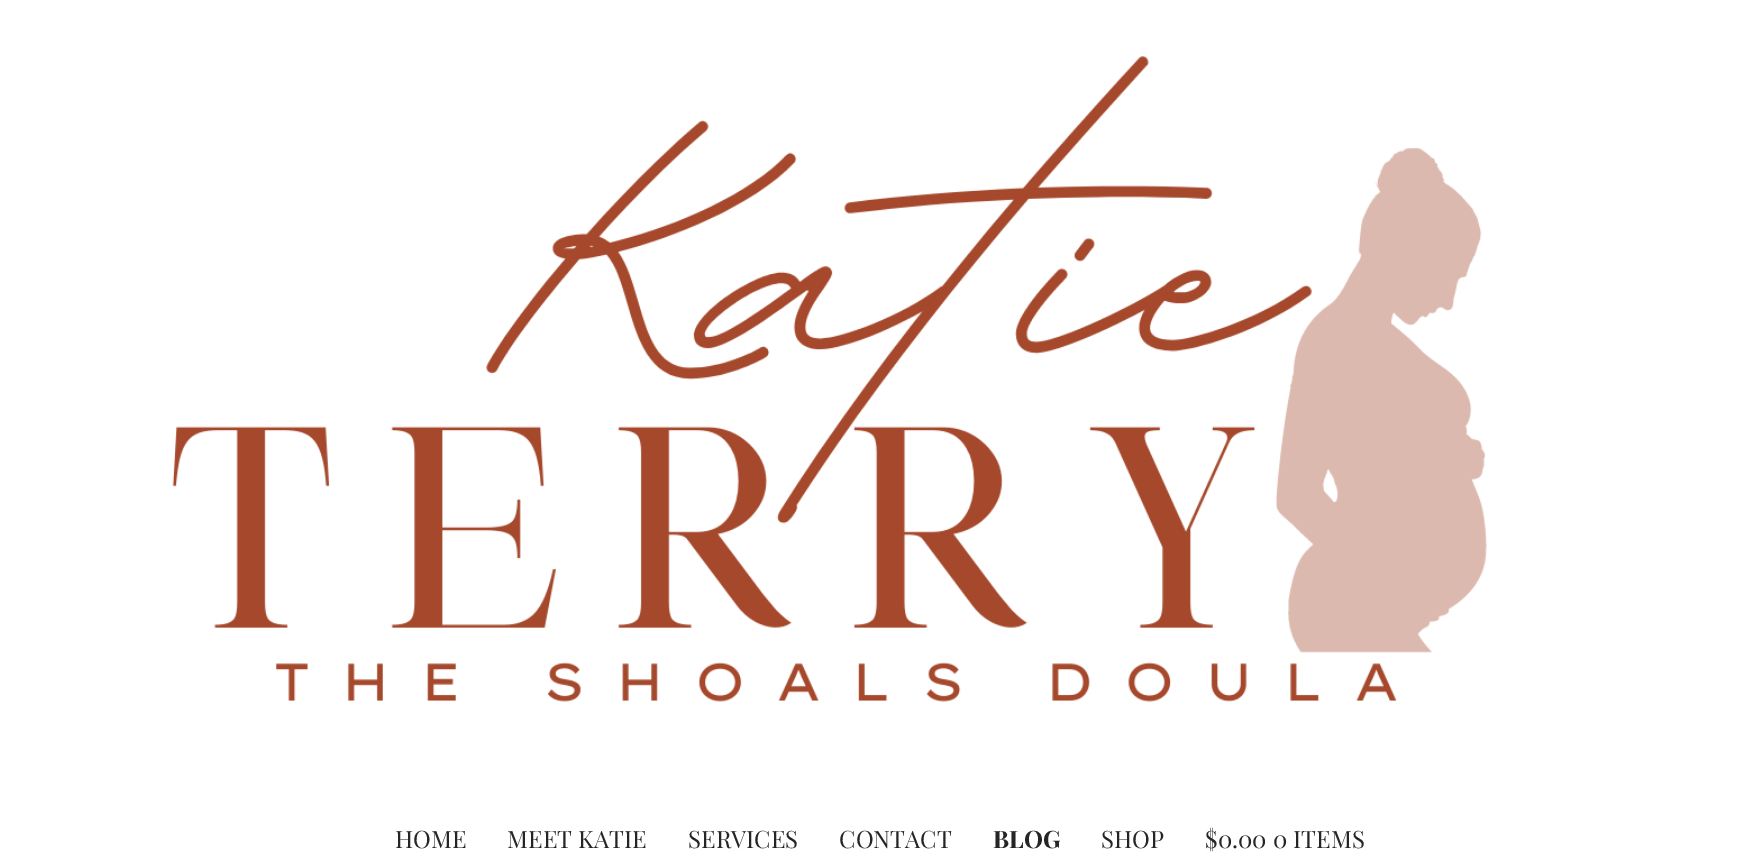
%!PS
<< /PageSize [1759 868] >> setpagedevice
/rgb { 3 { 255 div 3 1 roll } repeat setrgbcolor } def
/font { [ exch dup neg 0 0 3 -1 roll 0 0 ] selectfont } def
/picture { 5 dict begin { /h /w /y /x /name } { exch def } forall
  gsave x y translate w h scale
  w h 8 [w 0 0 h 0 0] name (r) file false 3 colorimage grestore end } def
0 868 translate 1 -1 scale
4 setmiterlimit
255 255 255 rgb
0 0 1759 868 rectfill
(img/1.rgb) 172 56 1315 646 picture
/PlayfairDisplay-Regular 24 font
37 37 37 rgb
[
  [(HOME) 395 848]
  [(MEET KATIE) 507 848]
  [(SERVICES) 688 848]
  [(CONTACT) 839 848]
] { aload pop moveto show } forall
/PlayfairDisplay-Bold 24 font
993 848 moveto (BLOG) show
/PlayfairDisplay-Regular 24 font
1101 848 moveto (SHOP) show
1205 848 moveto ($0.00 0 ITEMS) show
showpage
